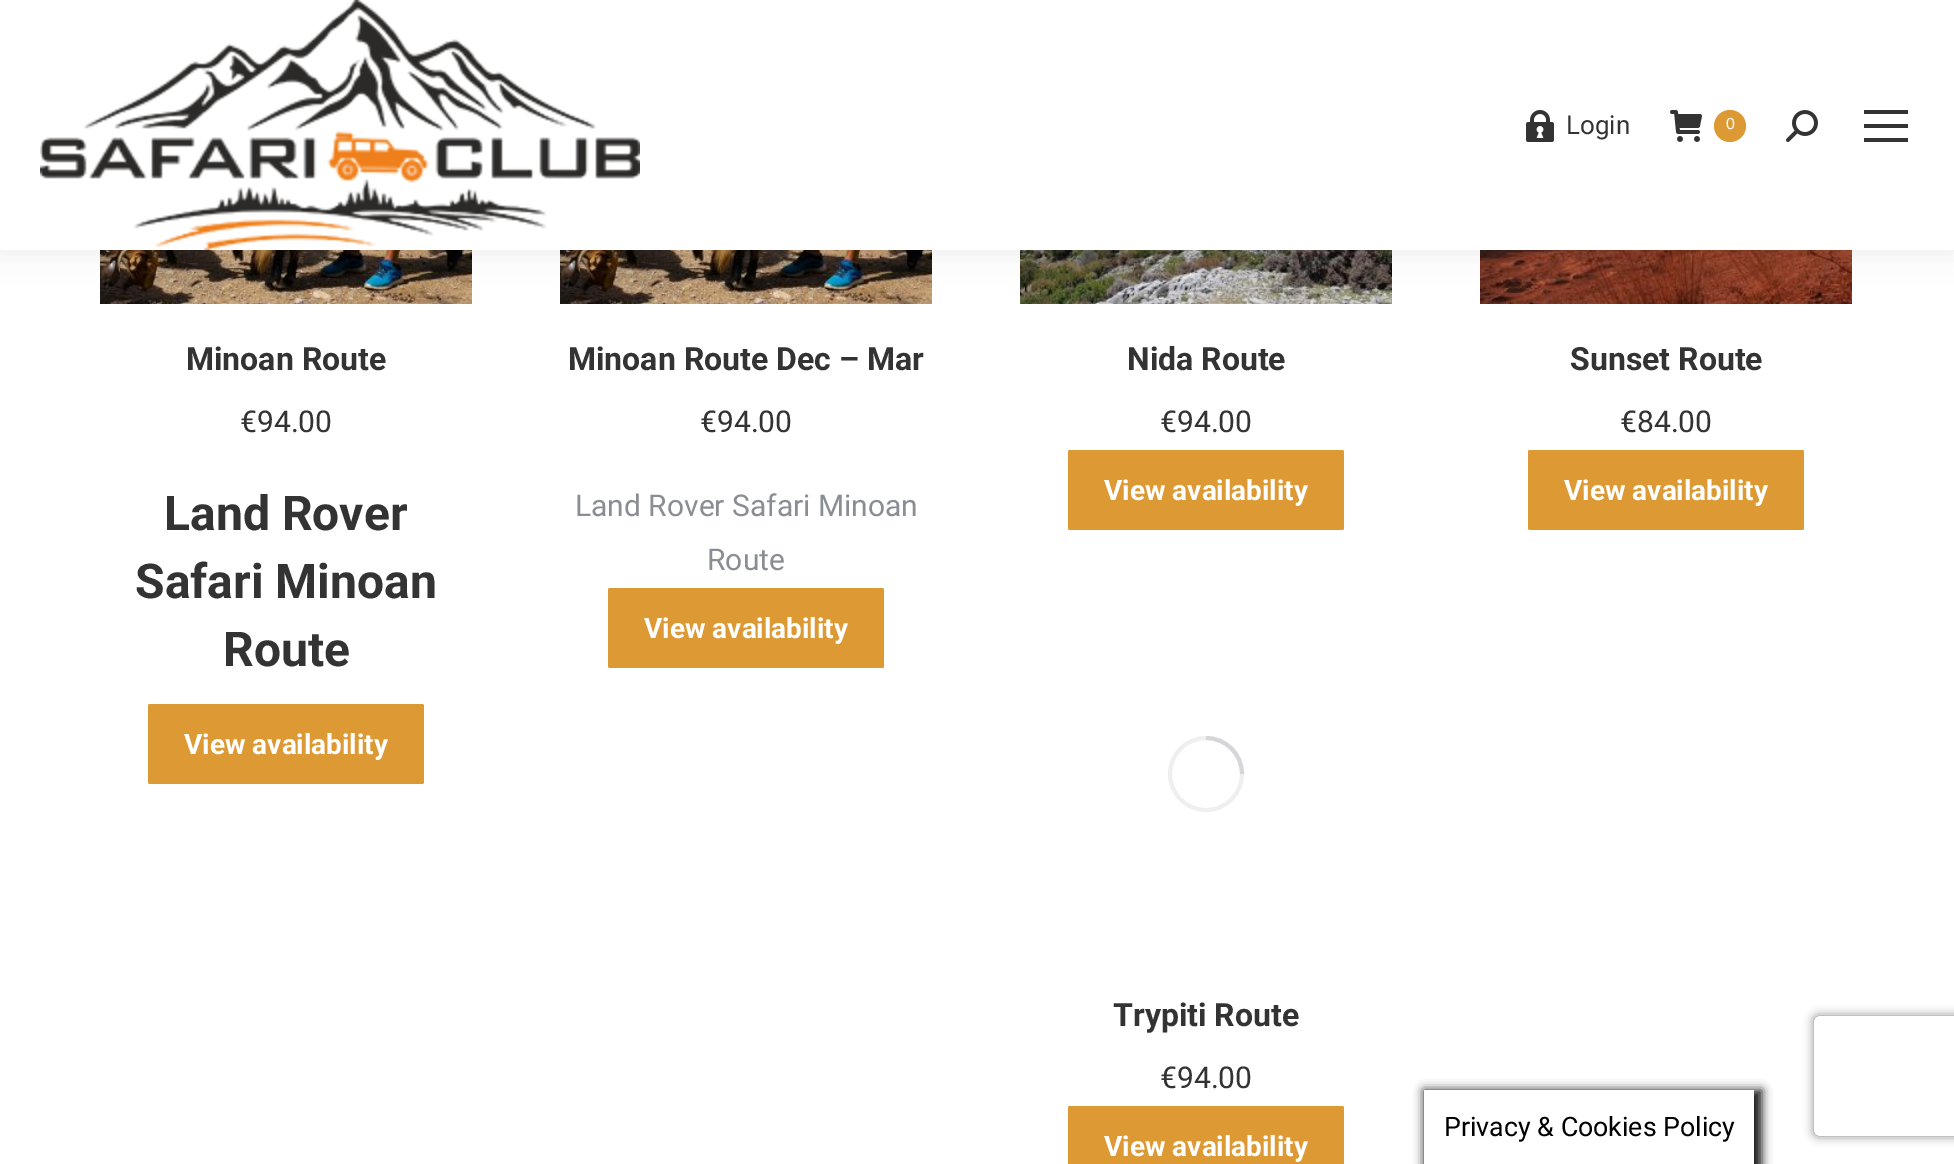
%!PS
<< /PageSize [1954 1164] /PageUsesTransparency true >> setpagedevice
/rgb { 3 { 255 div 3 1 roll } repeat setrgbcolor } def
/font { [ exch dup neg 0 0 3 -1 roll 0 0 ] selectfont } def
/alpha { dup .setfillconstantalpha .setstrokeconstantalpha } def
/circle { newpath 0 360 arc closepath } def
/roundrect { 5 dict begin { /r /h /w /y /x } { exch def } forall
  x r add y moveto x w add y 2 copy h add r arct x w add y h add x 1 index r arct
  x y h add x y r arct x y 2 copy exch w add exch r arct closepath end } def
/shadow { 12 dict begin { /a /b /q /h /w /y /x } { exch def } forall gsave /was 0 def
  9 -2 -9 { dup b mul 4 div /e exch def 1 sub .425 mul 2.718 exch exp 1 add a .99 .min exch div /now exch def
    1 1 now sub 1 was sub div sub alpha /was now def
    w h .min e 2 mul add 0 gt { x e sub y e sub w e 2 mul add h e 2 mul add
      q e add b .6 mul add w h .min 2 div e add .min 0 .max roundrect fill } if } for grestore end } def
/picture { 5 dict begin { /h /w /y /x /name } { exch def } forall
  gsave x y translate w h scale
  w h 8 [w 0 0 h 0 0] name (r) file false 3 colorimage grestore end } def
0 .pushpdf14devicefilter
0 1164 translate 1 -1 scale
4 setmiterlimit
255 255 255 rgb
0 0 1954 1164 rectfill
(img/5.rgb) 100 250 372 54 picture
(img/6.rgb) 560 250 372 54 picture
(img/7.rgb) 1020 250 372 54 picture
(img/8.rgb) 1480 250 372 54 picture
0 0 0 rgb
-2 -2 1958 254 0 15 0.07 shadow
255 255 255 rgb
0 0 1954 250 rectfill
(img/1.rgb) 40 0 600 250 picture
(img/2.rgb) 1526 110 28 32 picture
(img/3.rgb) 1670 110 32 32 picture
221 153 51 rgb
1730 126 16 circle fill
(img/4.rgb) 1786 110 32 32 picture
[
  [1864 110 44 4 51 51 51]
  [1864 124 44 4 51 51 51]
  [1864 138 44 4 51 51 51]
] { aload pop rgb rectfill } forall
221 153 51 rgb
148 704 276 80 2 roundrect fill
608 588 276 80 2 roundrect fill
1068 450 276 80 2 roundrect fill
1528 450 276 80 2 roundrect fill
239 239 240 rgb
4 setlinewidth
1206 774 36 circle stroke
0.25 alpha
139 141 148 rgb
1242 774 moveto 1242 754 1226 738 1206 738 curveto stroke
1 alpha
221 153 51 rgb
1068 1106 276 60 2 roundrect fill
gsave
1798 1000 moveto 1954 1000 lineto 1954 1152 lineto 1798 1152 lineto closepath 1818 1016 moveto 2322 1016 lineto 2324 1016 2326 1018 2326 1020 curveto 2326 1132 lineto 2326 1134 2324 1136 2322 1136 curveto 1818 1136 lineto 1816 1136 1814 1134 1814 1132 curveto 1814 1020 lineto 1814 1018 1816 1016 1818 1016 curveto closepath eoclip newpath
128 128 128 rgb
1814 1016 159 120 4 5 1 shadow
grestore
gsave
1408 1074 moveto 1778 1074 lineto 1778 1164 lineto 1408 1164 lineto closepath 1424 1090 moveto 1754 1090 lineto 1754 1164 lineto 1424 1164 lineto closepath eoclip newpath
22 22 22 rgb
1424 1090 338 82 0 5 1 shadow
grestore
/Roboto-Regular 26 font
51 51 51 rgb
1566 134 moveto (Login) show
/LiberationSans-Regular 16 font
255 255 255 rgb
1726 129 moveto (0) show
/Roboto-Bold 32 font
51 51 51 rgb
186 370 moveto (Minoan Route) show
/Roboto-Regular 30 font
240 432 moveto (€94.00) show
/Roboto-Bold 48 font
[
  [(Land Rover) 164 530]
  [(Safari Minoan) 135 598]
  [(Route) 223 666]
] { aload pop moveto show } forall
/Roboto-Bold 28 font
255 255 255 rgb
184 754 moveto (View availability) show
/Roboto-Bold 32 font
51 51 51 rgb
568 370 moveto (Minoan Route Dec – Mar) show
/Roboto-Regular 30 font
700 432 moveto (€94.00) show
139 141 148 rgb
575 516 moveto (Land Rover Safari Minoan) show
707 570 moveto (Route) show
/Roboto-Bold 28 font
255 255 255 rgb
644 638 moveto (View availability) show
/Roboto-Bold 32 font
51 51 51 rgb
1127 370 moveto (Nida Route) show
/Roboto-Regular 30 font
1160 432 moveto (€94.00) show
/Roboto-Bold 28 font
255 255 255 rgb
1104 500 moveto (View availability) show
/Roboto-Bold 32 font
51 51 51 rgb
1570 370 moveto (Sunset Route) show
/Roboto-Regular 30 font
1620 432 moveto (€84.00) show
/Roboto-Bold 28 font
255 255 255 rgb
1564 500 moveto (View availability) show
/Roboto-Bold 32 font
51 51 51 rgb
1113 1026 moveto (Trypiti Route) show
/Roboto-Regular 30 font
1160 1088 moveto (€94.00) show
/Roboto-Bold 28 font
255 255 255 rgb
1104 1156 moveto (View availability) show
/Roboto-Regular 26.75 font
0 0 0 rgb
1444 1136 moveto (Privacy & Cookies Policy) show
.poppdf14devicefilter showpage
